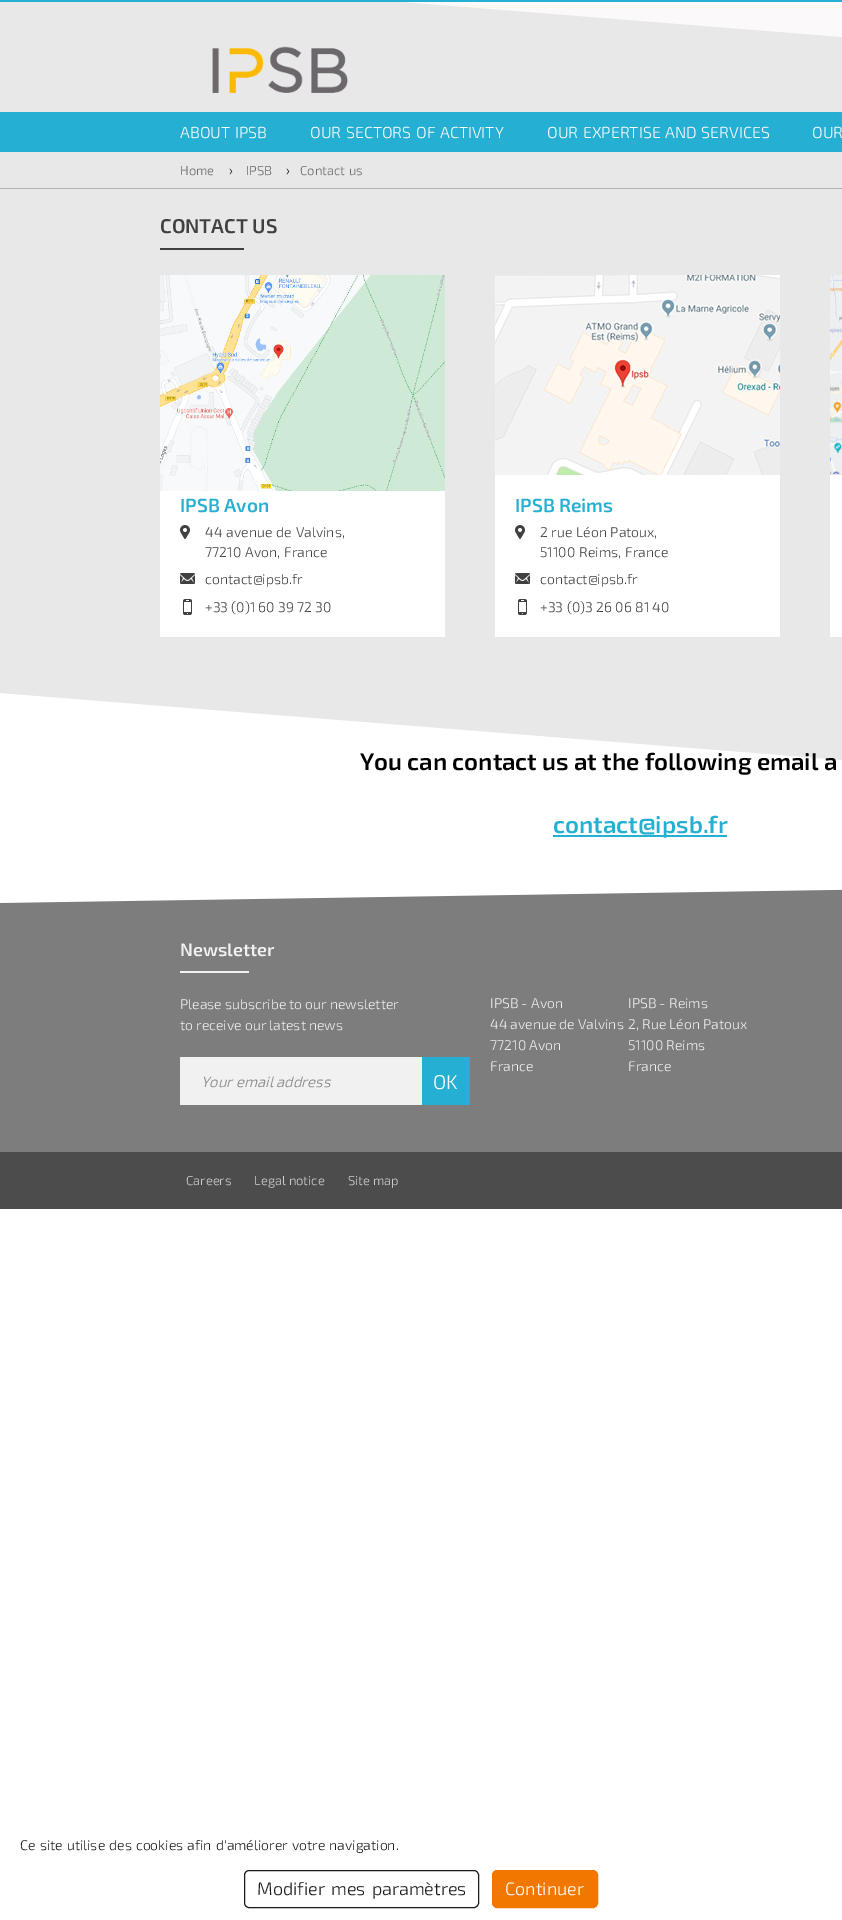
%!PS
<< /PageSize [842 1920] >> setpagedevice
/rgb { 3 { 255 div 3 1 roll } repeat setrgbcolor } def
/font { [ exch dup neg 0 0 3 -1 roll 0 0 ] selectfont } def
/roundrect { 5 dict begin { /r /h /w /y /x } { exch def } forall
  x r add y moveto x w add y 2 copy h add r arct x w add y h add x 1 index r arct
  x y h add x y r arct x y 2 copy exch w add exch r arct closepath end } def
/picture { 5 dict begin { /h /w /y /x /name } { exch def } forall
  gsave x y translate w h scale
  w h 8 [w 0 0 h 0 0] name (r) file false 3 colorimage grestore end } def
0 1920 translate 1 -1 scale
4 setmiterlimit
255 255 255 rgb
0 0 842 1920 rectfill
232 232 232 rgb
0 2 842 110 rectfill
(img/1.rgb) 405 2 437 35 picture
37 175 210 rgb
0 0 842 2 rectfill
(img/2.rgb) 212 46 136 47 picture
[
  [0 112 842 40 37 175 210]
  [0 152 842 36 232 232 232]
  [0 188 842 1 179 179 179]
] { aload pop rgb rectfill } forall
(img/3.rgb) 0 189 842 571 picture
64 64 64 rgb
160 248 84 2 rectfill
(img/4.rgb) 160 275 285 216 picture
255 255 255 rgb
160 491 285 146 rectfill
(img/5.rgb) 180 525 10 14 picture
(img/6.rgb) 180 573 15 11 picture
(img/7.rgb) 183 599 9 16 picture
(img/8.rgb) 495 275 285 200 picture
495 475 285 162 rectfill
(img/5.rgb) 515 525 10 14 picture
(img/6.rgb) 515 573 15 11 picture
(img/7.rgb) 518 599 9 16 picture
(img/9.rgb) 830 275 12 199 picture
[
  [830 475 12 162 255 255 255]
  [553 835 174 2 37 175 210]
  [0 903 842 249 125 125 125]
] { aload pop rgb rectfill } forall
(img/10.rgb) 0 883 842 20 picture
[
  [180 971 69 2 241 241 241]
  [180 1057 242 48 241 241 241]
  [422 1057 48 48 37 175 210]
  [0 1152 842 57 76 76 76]
] { aload pop rgb rectfill } forall
27 27 27 rgb
244.5 1870.5 234 37 4.5 roundrect stroke
241 119 0 rgb
492.5 1870.5 105 37 4.5 roundrect gsave fill grestore
stroke
/Exo2-Light 16 font
255 255 255 rgb
180 138 moveto 1 0 32 (ABOUT IPSB) widthshow
310 138 moveto 1 0 32 (OUR SECTORS OF ACTIVITY) widthshow
547 138 moveto 1 0 32 (OUR EXPERTISE AND SERVICES) widthshow
812 138 moveto 1 0 32 (OUR) widthshow
/Exo2-Light 13 font
106 106 106 rgb
180 175 moveto (Home) show
/Exo2-Light 14 font
0 0 0 rgb
229 175 moveto (›) show
/Exo2-Light 13 font
106 106 106 rgb
246 175 moveto (IPSB) show
/Exo2-Light 14 font
0 0 0 rgb
286 175 moveto (›) show
/Exo2-Light 13 font
106 106 106 rgb
300 175 moveto 1 0 32 (Contact us) widthshow
/Exo2-SemiBold 20 font
64 64 64 rgb
160 233 moveto (CONTACT US) show
/Exo2-SemiBold 19 font
37 175 210 rgb
180 512 moveto (IPSB Avon) show
/Exo2-Light 14 font
64 64 64 rgb
205 537 moveto 1 0 32 (44 avenue de Valvins,) widthshow
205 557 moveto 1 0 32 (77210 Avon, France) widthshow
205 584 moveto (contact@ipsb.fr) show
205 612 moveto (+33 \(0\)1 60 39 72 30) show
/Exo2-SemiBold 19 font
37 175 210 rgb
515 512 moveto (IPSB Reims) show
/Exo2-Light 14 font
64 64 64 rgb
540 537 moveto 0.5 0 32 (2 rue Léon Patoux,) widthshow
540 557 moveto 1 0 32 (51100 Reims, France) widthshow
540 584 moveto (contact@ipsb.fr) show
540 612 moveto 0.25 0 32 (+33 \(0\)3 26 06 81 40) widthshow
/Exo2-SemiBold 24 font
0 0 0 rgb
360 770 moveto (You can contact us at the following email a) show
37 175 210 rgb
553 833 moveto (contact@ipsb.fr) show
/Exo2-SemiBold 18 font
241 241 241 rgb
180 956 moveto (Newsletter) show
/Exo2-Light 14 font
180 1009 moveto (Please subscribe to our newsletter) show
180 1030 moveto (to receive our latest news) show
/Exo2-LightItalic 15 font
130 130 130 rgb
201 1087 moveto (Your email address) show
/Exo2-Light 20 font
255 255 255 rgb
433 1089 moveto (OK) show
/Exo2-Light 14 font
241 241 241 rgb
[
  [(IPSB - Avon) 490 1008]
  [(44 avenue de Valvins) 490 1029]
  [(77210 Avon) 490 1050]
  [(France) 490 1071]
  [(IPSB - Reims) 628 1008]
  [(2, Rue Léon Patoux) 628 1029]
  [(51100 Reims) 628 1050]
  [(France) 628 1071]
] { aload pop moveto show } forall
/Exo2-Light 13 font
209 209 209 rgb
[
  [(Careers) 186 1185]
  [(Legal notice) 254 1185]
  [(Site map) 348 1185]
] { aload pop moveto show } forall
/Exo2-Light 14 font
27 27 27 rgb
20 1850 moveto 1 0 32 (Ce site utilise des cookies afin d'améliorer votre navigation.) widthshow
/Exo2-Light 18 font
257 1895 moveto 2 0 32 (Modifier mes paramètres) widthshow
255 255 255 rgb
505 1895 moveto (Continuer) show
showpage
